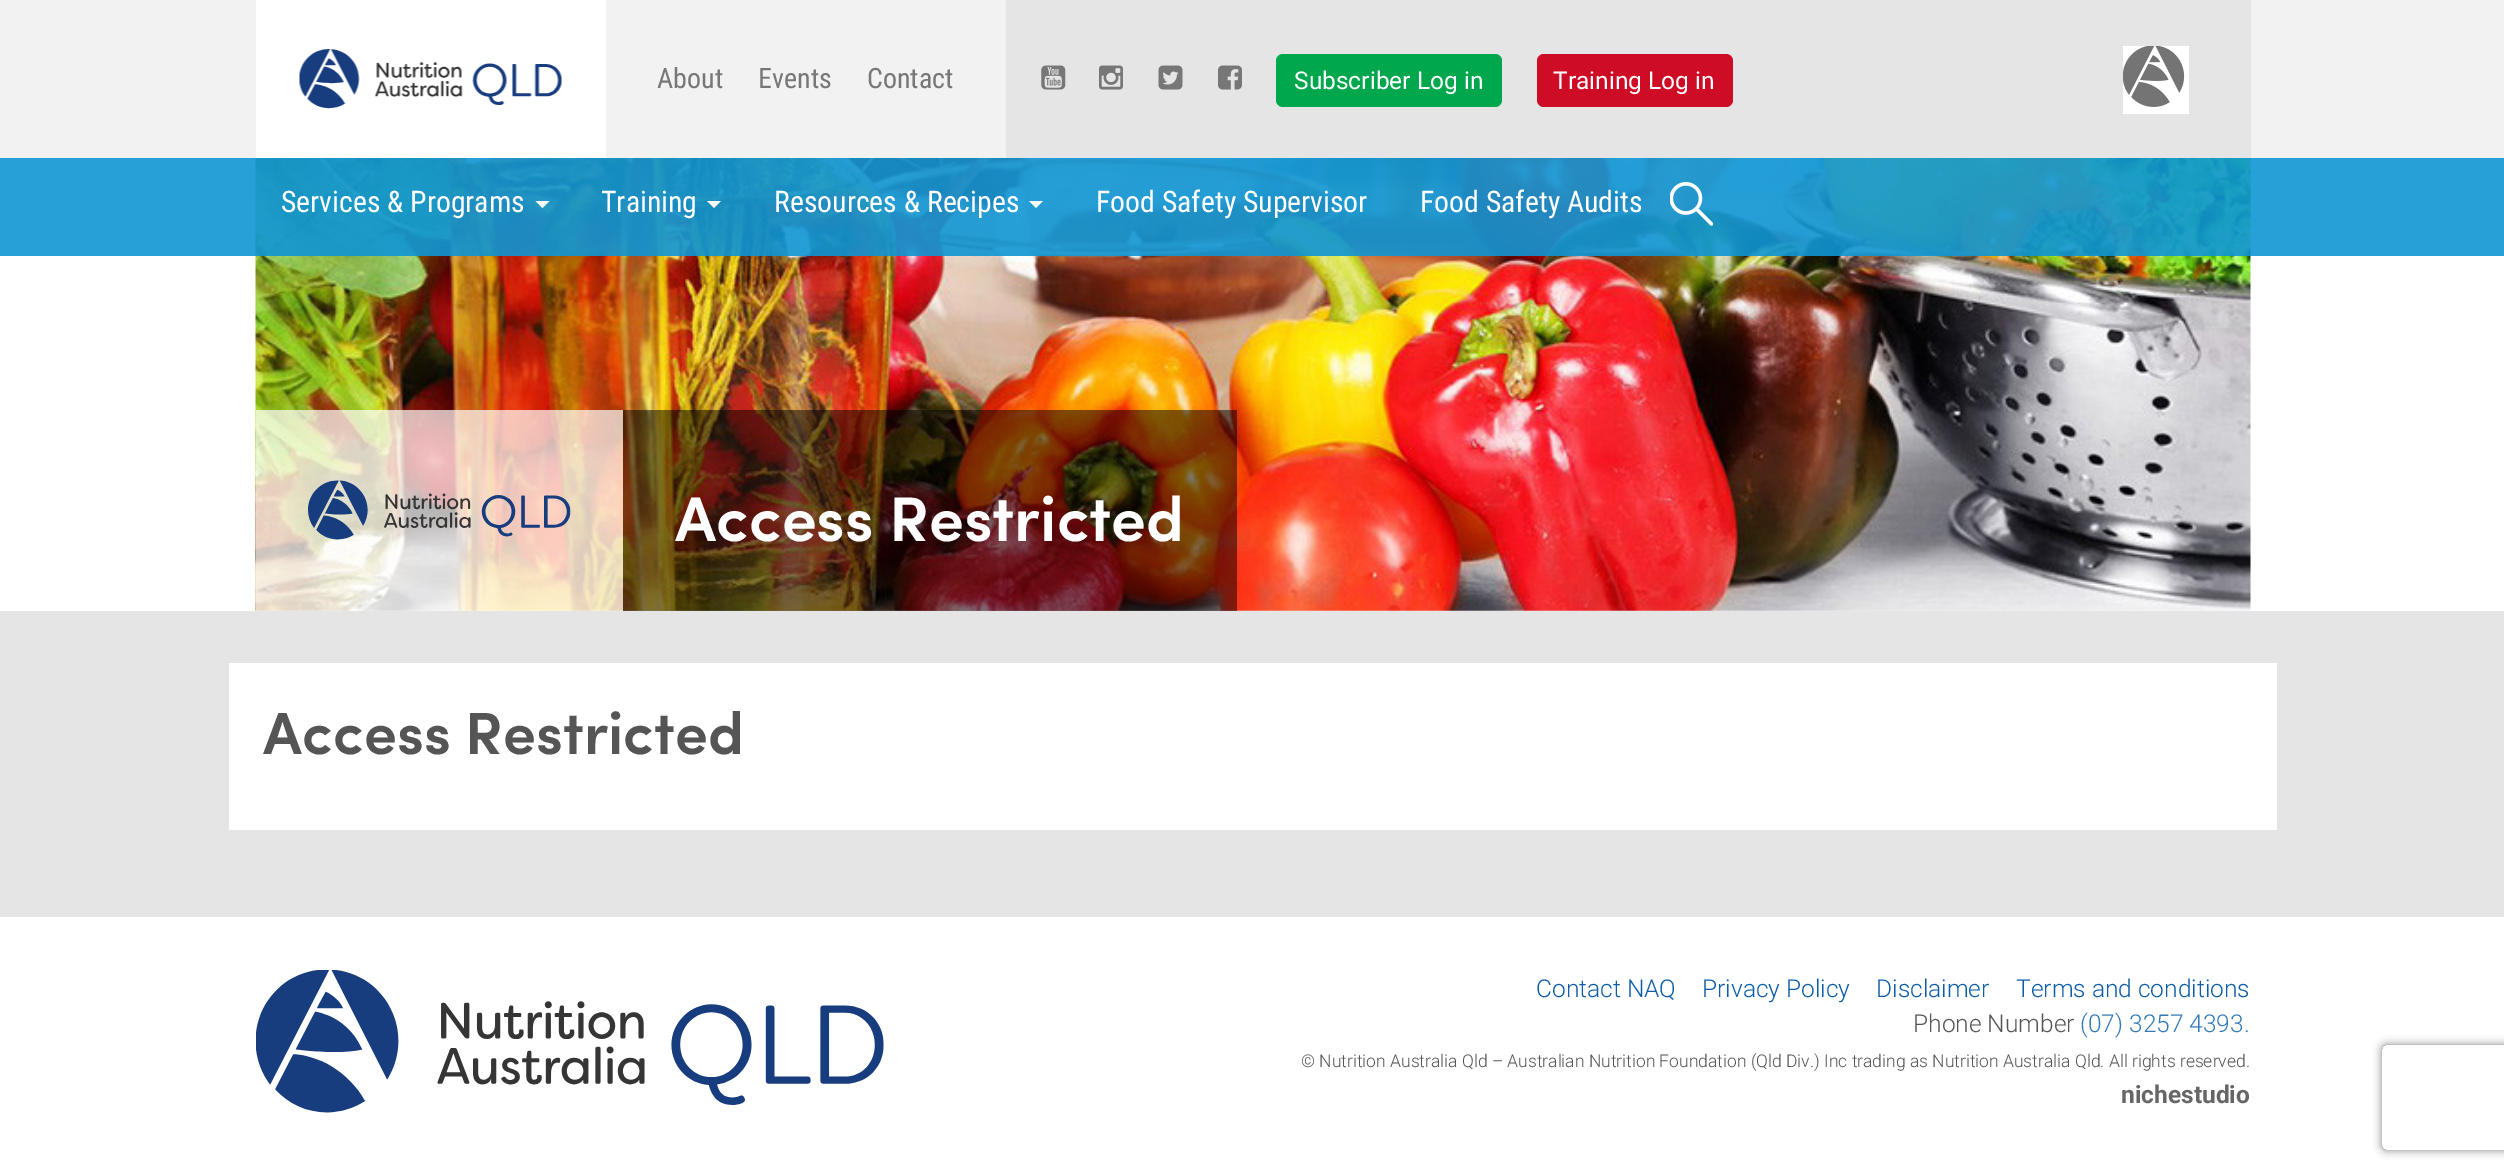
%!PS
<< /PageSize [2504 1174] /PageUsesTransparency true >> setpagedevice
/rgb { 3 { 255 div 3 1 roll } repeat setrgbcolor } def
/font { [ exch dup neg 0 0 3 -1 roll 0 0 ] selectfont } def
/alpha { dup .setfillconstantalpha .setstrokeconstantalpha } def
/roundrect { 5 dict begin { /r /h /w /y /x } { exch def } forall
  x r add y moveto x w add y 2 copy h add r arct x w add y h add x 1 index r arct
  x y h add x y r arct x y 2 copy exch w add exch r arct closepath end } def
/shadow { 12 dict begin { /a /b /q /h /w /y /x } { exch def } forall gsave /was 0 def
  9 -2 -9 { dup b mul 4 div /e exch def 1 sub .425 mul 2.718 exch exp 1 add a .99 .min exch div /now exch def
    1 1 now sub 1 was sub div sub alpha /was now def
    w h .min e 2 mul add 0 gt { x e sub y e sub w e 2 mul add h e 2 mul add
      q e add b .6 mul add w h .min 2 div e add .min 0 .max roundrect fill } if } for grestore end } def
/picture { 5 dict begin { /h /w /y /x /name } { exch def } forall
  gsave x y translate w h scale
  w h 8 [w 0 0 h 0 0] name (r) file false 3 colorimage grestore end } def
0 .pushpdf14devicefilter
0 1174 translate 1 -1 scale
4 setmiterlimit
255 255 255 rgb
0 0 2504 1174 rectfill
(img/8.rgb) 255 158 1996 453 picture
0.9 alpha
[
  [0 158 2504 98 15 149 211]
] { aload pop rgb rectfill } forall
1 alpha
[
  [0 0 2504 158 242 242 242]
  [1006 0 1245 158 229 229 229]
  [256 0 350 158 255 255 255]
] { aload pop rgb rectfill } forall
(img/1.rgb) 299 49 263 60 picture
(img/2.rgb) 1041 65 25 25 picture
(img/3.rgb) 1099 65 24 25 picture
(img/4.rgb) 1158 65 25 25 picture
(img/5.rgb) 1218 65 24 25 picture
0 167 77 rgb
1276 54 226 53 7 roundrect fill
207 12 38 rgb
1537 54 196 53 7 roundrect fill
255 255 255 rgb
2123 46 66 68 rectfill
(img/6.rgb) 2123 46 62 61 picture
535.5 201 moveto 549.5 201 lineto 542.5 208 lineto closepath fill
707 201 moveto 721 201 lineto 714 208 lineto closepath fill
1029 201 moveto 1043 201 lineto 1036 208 lineto closepath fill
(img/7.rgb) 1670 182 43 44 picture
228 229 228 rgb
0 611 2504 306 rectfill
0.7 alpha
255 255 255 rgb
256 410 367 201 rectfill
1 alpha
(img/9.rgb) 308 480 263 60 picture
0.5 alpha
0 0 0 rgb
623 410 614 201 rectfill
1 alpha
255 255 255 rgb
229 663 2048 167 rectfill
(img/10.rgb) 256 970 628 143 picture
gsave
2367 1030 moveto 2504 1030 lineto 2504 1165 lineto 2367 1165 lineto closepath 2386 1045 moveto 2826 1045 lineto 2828 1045 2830 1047 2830 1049 curveto 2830 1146 lineto 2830 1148 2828 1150 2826 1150 curveto 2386 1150 lineto 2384 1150 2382 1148 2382 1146 curveto 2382 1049 lineto 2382 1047 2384 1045 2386 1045 curveto closepath eoclip newpath
128 128 128 rgb
2382 1045 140 105 4 4.5 1 shadow
grestore
/RobotoCondensed-Regular 28 font
119 119 119 rgb
[
  [(About) 657 88]
  [(Events) 758 88]
  [(Contact) 867 88]
] { aload pop moveto show } forall
/Roboto-Regular 24.5 font
255 255 255 rgb
1294 89 moveto (Subscriber Log in) show
1553 89 moveto (Training Log in) show
/RobotoCondensed-Regular 29.75 font
[
  [(Services & Programs) 281 212]
  [(Training) 601 212]
  [(Resources & Recipes) 774 212]
  [(Food Safety Supervisor) 1096 212]
  [(Food Safety Audits) 1420 212]
] { aload pop moveto show } forall
/Sofia-SemiBold 63 font
675 541 moveto (Access Restricted) show
/Sofia-SemiBold 59.5 font
85 85 85 rgb
263 754 moveto (Access Restricted) show
/Roboto-Light 24.5 font
12 92 167 rgb
[
  [(Contact NAQ) 1536 997]
  [(Privacy Policy) 1702 997]
  [(Disclaimer) 1876 997]
  [(Terms and conditions) 2016 997]
] { aload pop moveto show } forall
85 85 85 rgb
1913 1032 moveto (Phone Number) show
51 122 183 rgb
2080 1032 moveto (\(07\) 3257 4393.) show
/Roboto-Light 17.5 font
85 85 85 rgb
1301 1067 moveto (© Nutrition Australia Qld – Australian Nutrition Foundation \(Qld Div.\) Inc trading as Nutrition Australia Qld. All rights reserved.) show
/Roboto-Bold 24.5 font
102 102 102 rgb
2121 1103 moveto (nichestudio) show
.poppdf14devicefilter showpage
